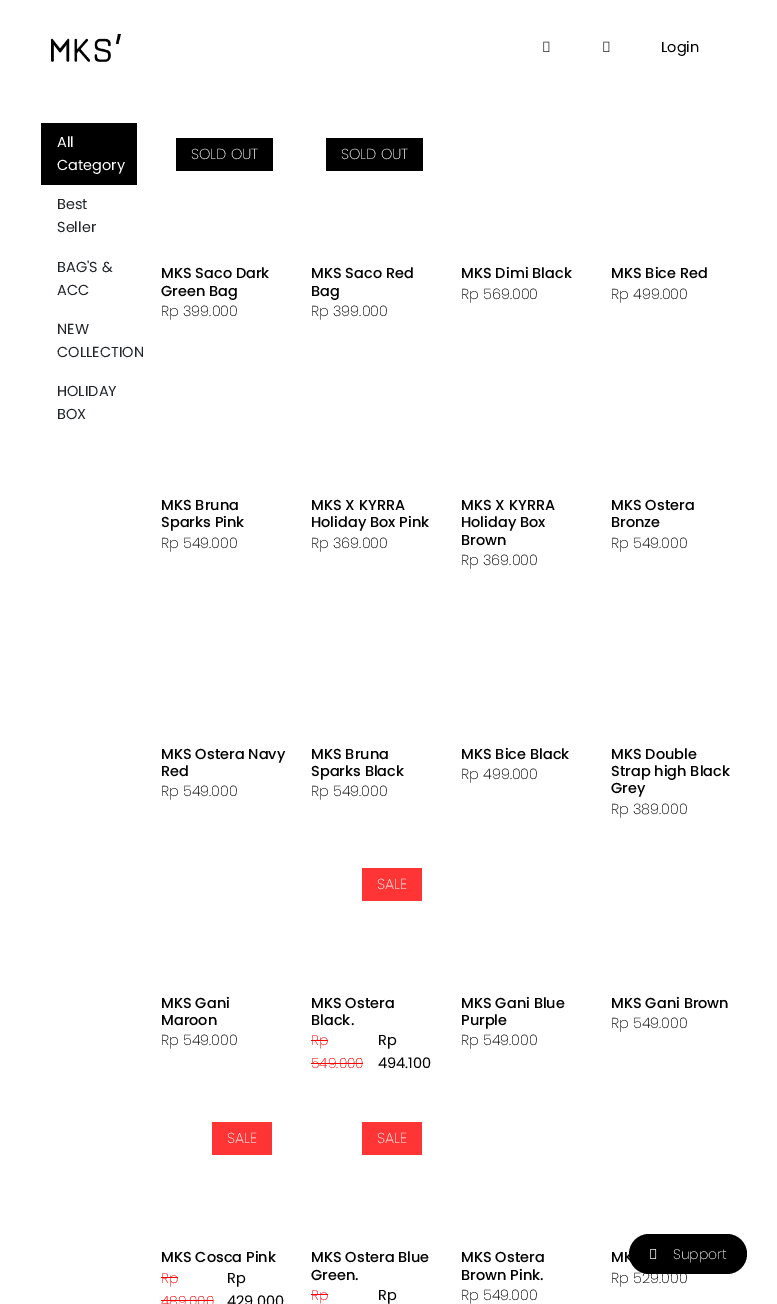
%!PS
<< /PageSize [777 1304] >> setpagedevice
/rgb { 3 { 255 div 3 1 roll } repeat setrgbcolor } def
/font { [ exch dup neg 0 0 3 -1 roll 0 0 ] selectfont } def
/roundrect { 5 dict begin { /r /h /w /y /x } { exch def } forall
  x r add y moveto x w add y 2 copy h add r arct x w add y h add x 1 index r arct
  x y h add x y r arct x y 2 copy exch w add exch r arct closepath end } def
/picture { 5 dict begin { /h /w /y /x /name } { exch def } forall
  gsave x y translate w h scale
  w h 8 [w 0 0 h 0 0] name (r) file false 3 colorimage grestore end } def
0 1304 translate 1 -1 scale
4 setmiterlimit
255 255 255 rgb
0 0 777 1304 rectfill
(img/1.rgb) 51 34 70 28 picture
(img/2.rgb) 543 41 7 11 picture
(img/2.rgb) 603 41 7 11 picture
[
  [41 123 96 62 0 0 0]
  [176 138 97 33 0 0 0]
  [326 138 97 33 0 0 0]
  [362 868 60 33 255 53 53]
  [311 1040 17 1 255 0 0]
  [311 1063 52 1 255 0 0]
  [212 1122 60 33 255 53 53]
  [161 1277 17 1 255 0 0]
  [161 1300 52 1 255 0 0]
  [362 1122 60 33 255 53 53]
  [311 1294 17 1 255 0 0]
] { aload pop rgb rectfill } forall
0 0 0 rgb
629 1234 118 40 20 roundrect fill
(img/3.rgb) 650 1249 7 10 picture
/Poppins-Regular 14.5 font
661 52 moveto (Login) show
255 255 255 rgb
57 147 moveto (All) show
57 170 moveto (Category) show
33 37 41 rgb
[
  [(Best) 57 209]
  [(Seller) 57 232]
  [(BAG'S &) 57 272]
  [(ACC) 57 295]
  [(NEW) 57 334]
  [(COLLECTION) 57 357]
  [(HOLIDAY) 57 396]
  [(BOX) 57 419]
] { aload pop moveto show } forall
/Poppins-ExtraLight 14.5 font
255 255 255 rgb
191 159 moveto (SOLD OUT) show
/Poppins-Medium 14.5 font
0 0 0 rgb
161 278 moveto (MKS Saco Dark) show
161 296 moveto (Green Bag) show
/Poppins-ExtraLight 14.5 font
161 316 moveto (Rp 399.000) show
255 255 255 rgb
341 159 moveto (SOLD OUT) show
/Poppins-Medium 14.5 font
0 0 0 rgb
311 278 moveto (MKS Saco Red) show
311 296 moveto (Bag) show
/Poppins-ExtraLight 14.5 font
311 316 moveto (Rp 399.000) show
/Poppins-Medium 14.5 font
461 278 moveto (MKS Dimi Black) show
/Poppins-ExtraLight 14.5 font
461 299 moveto (Rp 569.000) show
/Poppins-Medium 14.5 font
611 278 moveto (MKS Bice Red) show
/Poppins-ExtraLight 14.5 font
611 299 moveto (Rp 499.000) show
/Poppins-Medium 14.5 font
161 510 moveto (MKS Bruna) show
161 527 moveto (Sparks Pink) show
/Poppins-ExtraLight 14.5 font
161 548 moveto (Rp 549.000) show
/Poppins-Medium 14.5 font
311 510 moveto (MKS X KYRRA) show
311 527 moveto (Holiday Box Pink) show
/Poppins-ExtraLight 14.5 font
311 548 moveto (Rp 369.000) show
/Poppins-Medium 14.5 font
[
  [(MKS X KYRRA) 461 510]
  [(Holiday Box) 461 527]
  [(Brown) 461 545]
] { aload pop moveto show } forall
/Poppins-ExtraLight 14.5 font
461 565 moveto (Rp 369.000) show
/Poppins-Medium 14.5 font
611 510 moveto (MKS Ostera) show
611 527 moveto (Bronze) show
/Poppins-ExtraLight 14.5 font
611 548 moveto (Rp 549.000) show
/Poppins-Medium 14.5 font
161 759 moveto (MKS Ostera Navy) show
161 776 moveto (Red) show
/Poppins-ExtraLight 14.5 font
161 796 moveto (Rp 549.000) show
/Poppins-Medium 14.5 font
311 759 moveto (MKS Bruna) show
311 776 moveto (Sparks Black) show
/Poppins-ExtraLight 14.5 font
311 796 moveto (Rp 549.000) show
/Poppins-Medium 14.5 font
461 759 moveto (MKS Bice Black) show
/Poppins-ExtraLight 14.5 font
461 779 moveto (Rp 499.000) show
/Poppins-Medium 14.5 font
[
  [(MKS Double) 611 759]
  [(Strap high Black) 611 776]
  [(Grey) 611 793]
] { aload pop moveto show } forall
/Poppins-ExtraLight 14.5 font
611 814 moveto (Rp 389.000) show
/Poppins-Medium 14.5 font
161 1008 moveto (MKS Gani) show
161 1025 moveto (Maroon) show
/Poppins-ExtraLight 14.5 font
161 1045 moveto (Rp 549.000) show
255 255 255 rgb
377 889 moveto (SALE) show
/Poppins-Medium 14.5 font
0 0 0 rgb
311 1008 moveto (MKS Ostera) show
311 1025 moveto (Black.) show
/Poppins-ExtraLight 14 font
255 0 0 rgb
311 1045 moveto (Rp) show
311 1068 moveto (549.000) show
/Poppins-Regular 14.5 font
0 0 0 rgb
378 1045 moveto (Rp) show
378 1068 moveto (494.100) show
/Poppins-Medium 14.5 font
461 1008 moveto (MKS Gani Blue) show
461 1025 moveto (Purple) show
/Poppins-ExtraLight 14.5 font
461 1045 moveto (Rp 549.000) show
/Poppins-Medium 14.5 font
611 1008 moveto (MKS Gani Brown) show
/Poppins-ExtraLight 14.5 font
611 1028 moveto (Rp 549.000) show
255 255 255 rgb
227 1143 moveto (SALE) show
/Poppins-Medium 14.5 font
0 0 0 rgb
161 1262 moveto (MKS Cosca Pink) show
/Poppins-ExtraLight 14 font
255 0 0 rgb
161 1283 moveto (Rp) show
161 1306 moveto (489.000) show
/Poppins-Regular 14.5 font
0 0 0 rgb
227 1283 moveto (Rp) show
227 1306 moveto (429.000) show
/Poppins-ExtraLight 14.5 font
255 255 255 rgb
377 1143 moveto (SALE) show
/Poppins-Medium 14.5 font
0 0 0 rgb
311 1262 moveto (MKS Ostera Blue) show
311 1280 moveto (Green.) show
/Poppins-ExtraLight 14 font
255 0 0 rgb
311 1300 moveto (Rp) show
/Poppins-Regular 14.5 font
0 0 0 rgb
378 1300 moveto (Rp) show
/Poppins-Medium 14.5 font
461 1262 moveto (MKS Ostera) show
461 1280 moveto (Brown Pink.) show
/Poppins-ExtraLight 14.5 font
461 1300 moveto (Rp 549.000) show
/Poppins-Medium 14.5 font
611 1262 moveto (MK) show
/Poppins-ExtraLight 14.5 font
611 1283 moveto (Rp 529.000) show
/Poppins-ExtraLight 14 font
255 255 255 rgb
673 1259 moveto (Support) show
showpage
